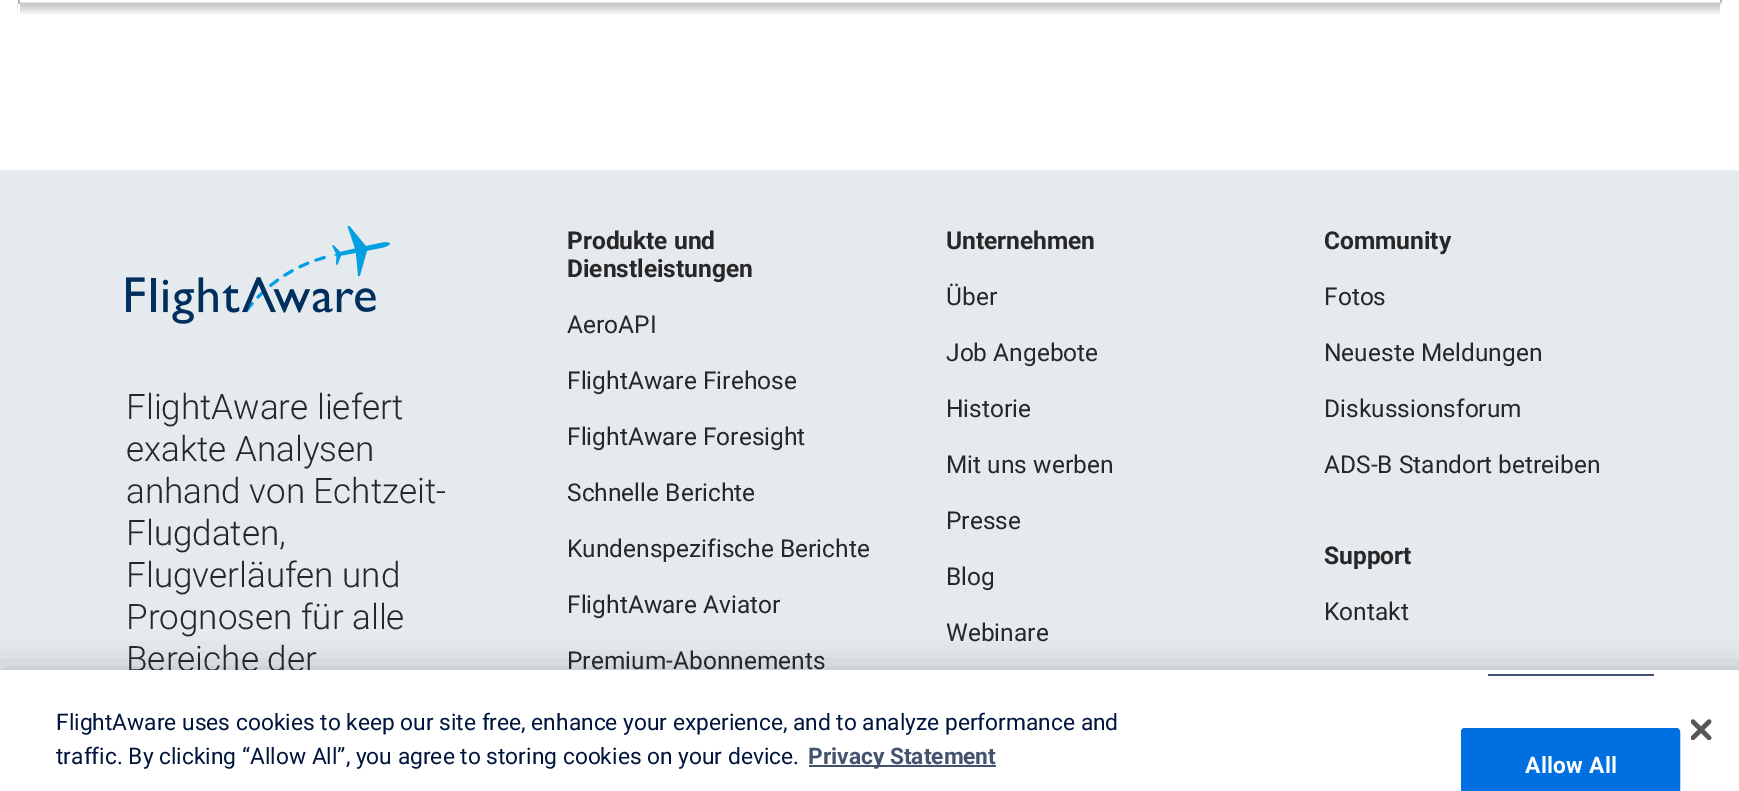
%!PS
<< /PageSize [1739 791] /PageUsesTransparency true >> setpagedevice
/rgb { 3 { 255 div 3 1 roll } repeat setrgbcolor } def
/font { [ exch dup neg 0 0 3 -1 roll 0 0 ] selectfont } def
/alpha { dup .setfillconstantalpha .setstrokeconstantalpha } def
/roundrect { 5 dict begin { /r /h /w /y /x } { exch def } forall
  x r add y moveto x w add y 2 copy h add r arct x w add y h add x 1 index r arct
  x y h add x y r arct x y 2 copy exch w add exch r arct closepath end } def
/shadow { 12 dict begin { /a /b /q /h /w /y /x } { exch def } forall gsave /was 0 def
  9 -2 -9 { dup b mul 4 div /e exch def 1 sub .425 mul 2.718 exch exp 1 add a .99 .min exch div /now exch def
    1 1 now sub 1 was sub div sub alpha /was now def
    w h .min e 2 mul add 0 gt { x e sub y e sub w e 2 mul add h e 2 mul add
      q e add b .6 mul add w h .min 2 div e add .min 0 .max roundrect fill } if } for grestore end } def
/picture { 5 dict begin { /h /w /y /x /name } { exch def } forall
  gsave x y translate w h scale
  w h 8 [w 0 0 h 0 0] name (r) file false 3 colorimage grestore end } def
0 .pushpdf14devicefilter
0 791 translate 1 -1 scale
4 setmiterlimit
255 255 255 rgb
0 0 1739 791 rectfill
[
  [1720 0 2 4 178 178 178]
  [18 2 1704 2 223 223 223]
  [18 0 2 4 178 178 178]
] { aload pop rgb rectfill } forall
(img/1.rgb) 17 3 1705 12 picture
[
  [1720 4 2 11 255 255 255]
  [18 4 2 11 255 255 255]
  [0 170 1739 500 229 234 239]
] { aload pop rgb rectfill } forall
(img/2.rgb) 126 226 264 98 picture
0 0 0 rgb
0 670 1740 121 0 16 0.2 shadow
/Roboto-Light 35 font
39 39 39 rgb
[
  [(FlightAware liefert) 126 419]
  [(exakte Analysen) 126 461]
  [(anhand von Echtzeit-) 126 503]
  [(Flugdaten,) 126 545]
  [(Flugverläufen und) 126 587]
  [(Prognosen für alle) 126 629]
  [(Bereiche der) 126 671]
] { aload pop moveto show } forall
/Roboto-Bold 24.5 font
567 249 moveto (Produkte und) show
567 277 moveto (Dienstleistungen) show
/Roboto-Regular 24.5 font
[
  [(AeroAPI) 567 333]
  [(FlightAware Firehose) 567 389]
  [(FlightAware Foresight) 567 445]
  [(Schnelle Berichte) 567 501]
  [(Kundenspezifische Berichte) 567 557]
  [(FlightAware Aviator) 567 613]
  [(Premium-Abonnements) 567 669]
] { aload pop moveto show } forall
/Roboto-Bold 24.5 font
946 249 moveto (Unternehmen) show
/Roboto-Regular 24.5 font
[
  [(Über) 946 305]
  [(Job Angebote) 946 361]
  [(Historie) 946 417]
  [(Mit uns werben) 946 473]
  [(Presse) 946 529]
  [(Blog) 946 585]
  [(Webinare) 946 641]
] { aload pop moveto show } forall
/Roboto-Bold 24.5 font
1324 249 moveto (Community) show
/Roboto-Regular 24.5 font
[
  [(Fotos) 1324 305]
  [(Neueste Meldungen) 1324 361]
  [(Diskussionsforum) 1324 417]
  [(ADS-B Standort betreiben) 1324 473]
] { aload pop moveto show } forall
/Roboto-Bold 24.5 font
1324 564 moveto (Support) show
/Roboto-Regular 24.5 font
1324 620 moveto (Kontakt) show
255 255 255 rgb
0 670 1739 121 rectfill
/Roboto-Regular 22.75 font
0 21 61 rgb
56 730 moveto (FlightAware uses cookies to keep our site free, enhance your experience, and to analyze performance and) show
56 764 moveto (traffic. By clicking “Allow All”, you agree to storing cookies on your device.) show
66 82 111 rgb
809 765 187 2 rectfill
/Roboto-Bold 22.75 font
808 764 moveto (Privacy Statement) show
1488 674 166 2 rectfill
0 112 224 rgb
1465 728 moveto 1676 728 lineto 1678 728 1680 730 1680 732 curveto 1680 791 lineto 1461 791 lineto 1461 732 lineto 1461 730 1463 728 1465 728 curveto closepath fill
2 setlinewidth
1462 729 217 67 3 roundrect stroke
255 255 255 rgb
1525 773 moveto 0.25 0 (Allow All) ashow
(img/3.rgb) 1691 719 21 21 picture
.poppdf14devicefilter showpage
